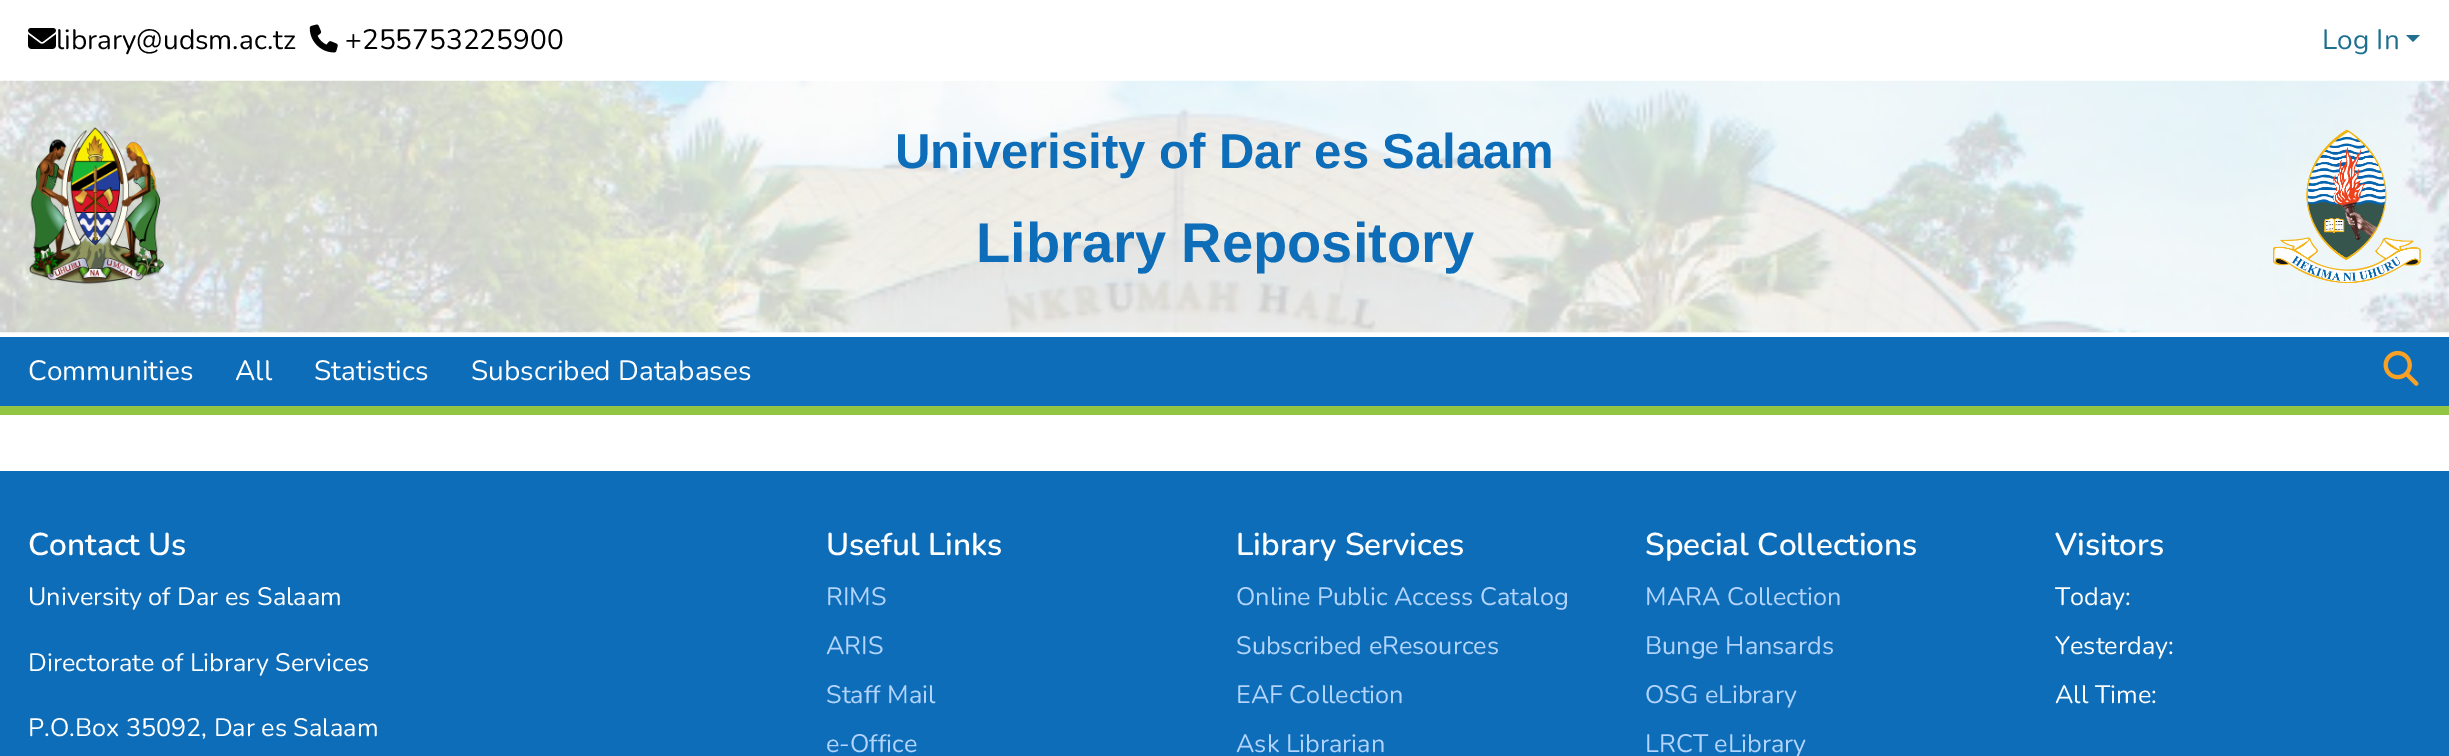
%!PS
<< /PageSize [2449 756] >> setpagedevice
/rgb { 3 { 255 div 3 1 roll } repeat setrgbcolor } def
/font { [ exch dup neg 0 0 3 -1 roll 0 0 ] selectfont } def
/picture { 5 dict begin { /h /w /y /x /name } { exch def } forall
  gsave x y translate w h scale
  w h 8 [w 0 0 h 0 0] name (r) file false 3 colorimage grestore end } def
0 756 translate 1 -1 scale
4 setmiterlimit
255 255 255 rgb
0 0 2449 756 rectfill
146 198 66 rgb
0 406 2449 9 rectfill
(img/1.rgb) 28 28 28 21 picture
(img/2.rgb) 309 24 29 29 picture
30 111 144 rgb
2406 35 moveto 2420 35 lineto 2413 42 lineto closepath fill
252 252 253 rgb
0 81 2449 252 rectfill
(img/3.rgb) 0 80 2449 253 picture
(img/4.rgb) 29 127 135 158 picture
(img/5.rgb) 2273 129 148 154 picture
13 109 185 rgb
0 337 2449 69 rectfill
(img/6.rgb) 2383 350 36 36 picture
0 471 2449 285 rectfill
/Nunito-Regular 28 font
0 0 0 rgb
56 49 moveto (library@udsm.ac.tz) show
345 49 moveto (+255753225900) show
30 111 144 rgb
2322 49 moveto (Log In) show
/LiberationSans-Bold 49 font
13 109 185 rgb
895 168 moveto (Univerisity of Dar es Salaam) show
/LiberationSans-Bold 56 font
976 262 moveto (Library Repository) show
/Nunito-Regular 28 font
255 255 255 rgb
[
  [(Communities) 28 380]
  [(All) 235 380]
  [(Statistics) 314 380]
  [(Subscribed Databases) 471 380]
] { aload pop moveto show } forall
/Nunito-SemiBold 31.5 font
28 555 moveto (Contact Us) show
/Nunito-Regular 25.25 font
[
  [(University of Dar es Salaam) 28 605]
  [(Directorate of Library Services) 28 671]
  [(P.O.Box 35092, Dar es Salaam) 28 736]
] { aload pop moveto show } forall
/Nunito-SemiBold 31.5 font
826 555 moveto (Useful Links) show
/Nunito-Regular 25.25 font
179 212 252 rgb
[
  [(RIMS) 826 605]
  [(ARIS) 826 654]
  [(Staff Mail) 826 703]
  [(e-Office) 826 752]
] { aload pop moveto show } forall
/Nunito-SemiBold 31.5 font
255 255 255 rgb
1236 555 moveto (Library Services) show
/Nunito-Regular 25.25 font
179 212 252 rgb
[
  [(Online Public Access Catalog) 1236 605]
  [(Subscribed eResources) 1236 654]
  [(EAF Collection) 1236 703]
  [(Ask Librarian) 1236 752]
] { aload pop moveto show } forall
/Nunito-SemiBold 31.5 font
255 255 255 rgb
1645 555 moveto (Special Collections) show
/Nunito-Regular 25.25 font
179 212 252 rgb
[
  [(MARA Collection) 1645 605]
  [(Bunge Hansards) 1645 654]
  [(OSG eLibrary) 1645 703]
  [(LRCT eLibrary) 1645 752]
] { aload pop moveto show } forall
/Nunito-SemiBold 31.5 font
255 255 255 rgb
2055 555 moveto (Visitors) show
/Nunito-Regular 25.25 font
[
  [(Today:) 2055 605]
  [(Yesterday:) 2055 654]
  [(All Time:) 2055 703]
] { aload pop moveto show } forall
showpage
